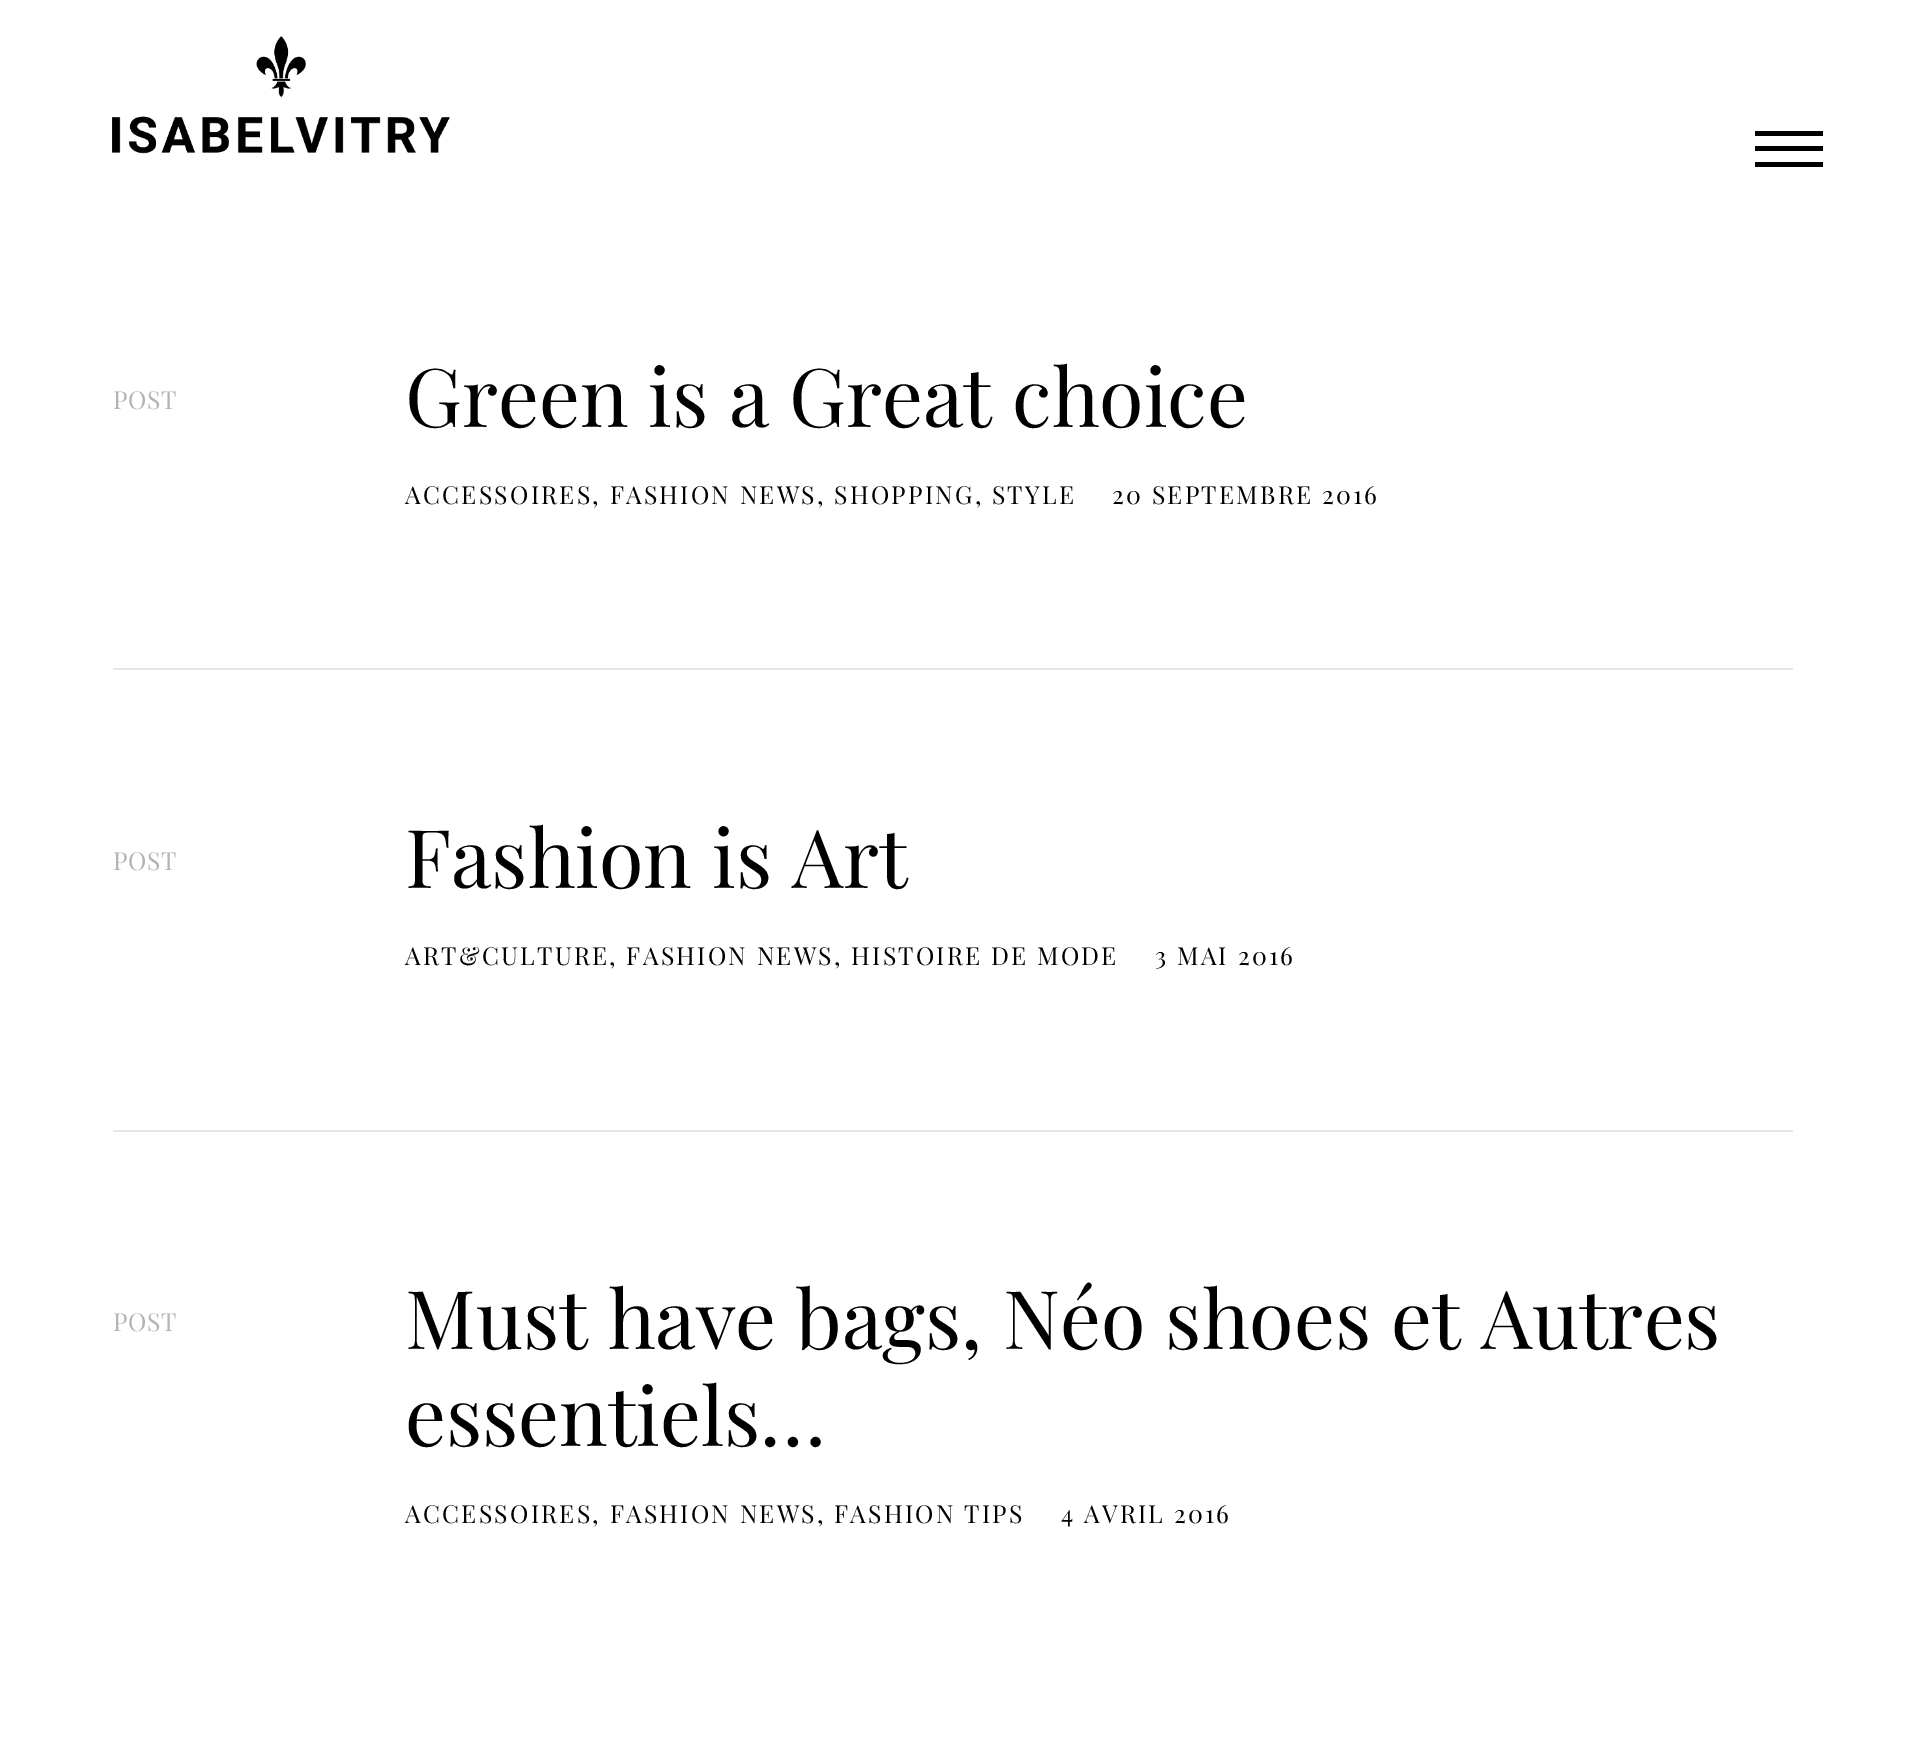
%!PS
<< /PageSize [1905 1752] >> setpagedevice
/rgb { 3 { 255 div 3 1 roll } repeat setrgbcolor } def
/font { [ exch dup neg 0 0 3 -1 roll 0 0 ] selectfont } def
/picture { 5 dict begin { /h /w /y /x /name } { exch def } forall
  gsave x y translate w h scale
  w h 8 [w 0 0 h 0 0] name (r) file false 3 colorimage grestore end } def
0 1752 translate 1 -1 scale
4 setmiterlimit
255 255 255 rgb
0 0 1905 1752 rectfill
(img/1.rgb) 112 36 338 118 picture
[
  [1755 146 68 5 0 0 0]
  [1755 131 68 5 0 0 0]
  [1755 162 68 5 0 0 0]
  [113 668 1680 2 230 230 230]
  [113 1130 1680 2 230 230 230]
] { aload pop rgb rectfill } forall
/PlayfairDisplay-Regular 24.75 font
179 179 179 rgb
113 409 moveto 0.5 0 (POST) ashow
/PlayfairDisplay-Regular 81 font
0 0 0 rgb
405 427 moveto (Green is a Great choice) show
/PlayfairDisplay-Regular 24.75 font
405 504 moveto 2.25 0 (ACCESSOIRES, FASHION NEWS, SHOPPING, STYLE) ashow
1112 504 moveto 2.25 0 (20 SEPTEMBRE 2016) ashow
179 179 179 rgb
113 870 moveto 0.5 0 (POST) ashow
/PlayfairDisplay-Regular 81 font
0 0 0 rgb
405 888 moveto (Fashion is Art) show
/PlayfairDisplay-Regular 24.75 font
405 965 moveto 2.25 0 (ART&CULTURE, FASHION NEWS, HISTOIRE DE MODE) ashow
1155 965 moveto 2.25 0 (3 MAI 2016) ashow
179 179 179 rgb
113 1331 moveto 0.5 0 (POST) ashow
/PlayfairDisplay-Regular 81 font
0 0 0 rgb
405 1349 moveto (Must have bags, Néo shoes et Autres) show
405 1446 moveto (essentiels…) show
/PlayfairDisplay-Regular 24.75 font
405 1523 moveto 2.25 0 (ACCESSOIRES, FASHION NEWS, FASHION TIPS) ashow
1061 1523 moveto 2.25 0 (4 AVRIL 2016) ashow
showpage
